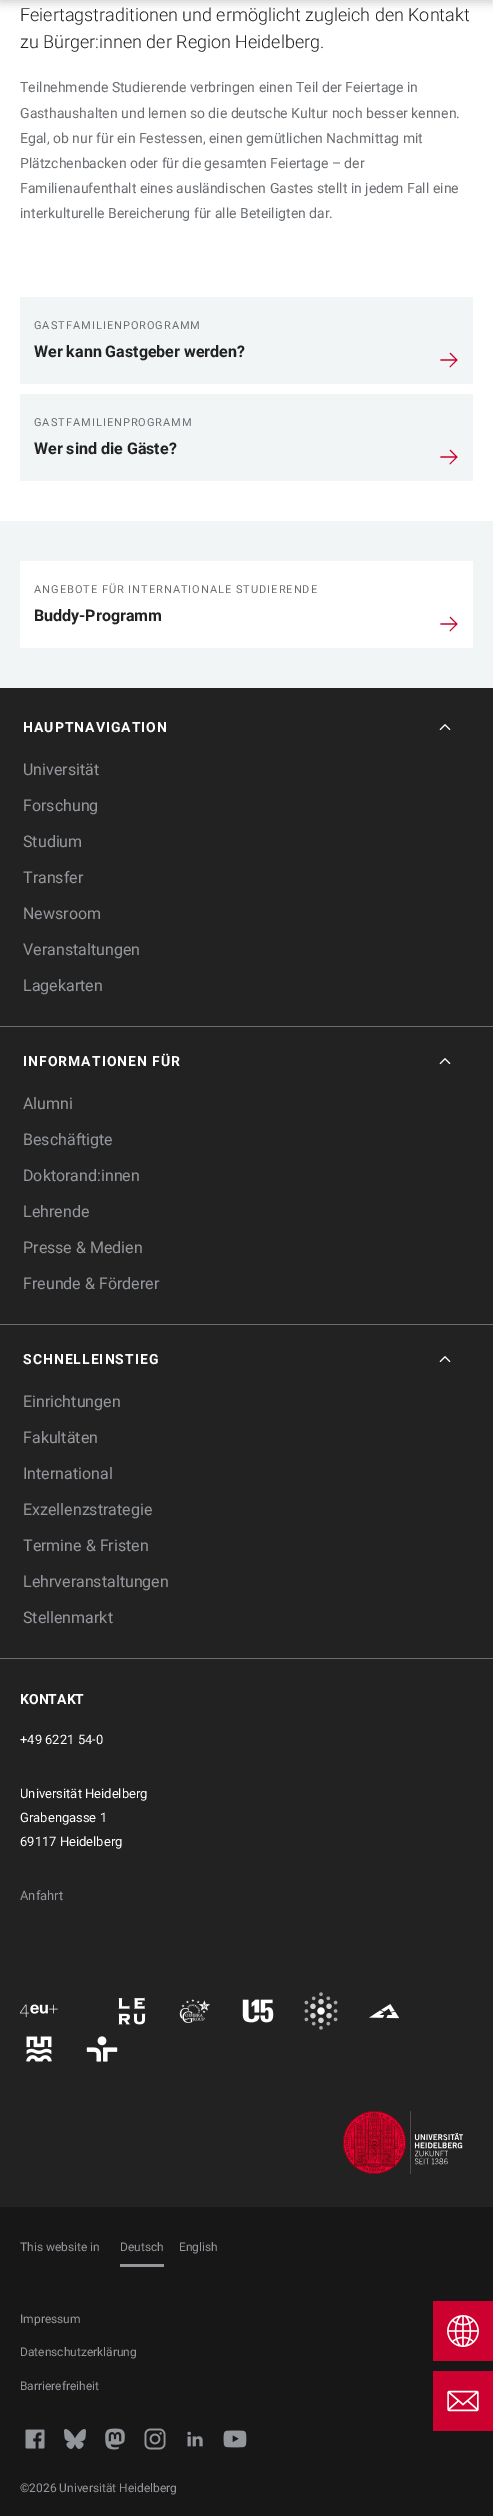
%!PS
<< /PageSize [493 2516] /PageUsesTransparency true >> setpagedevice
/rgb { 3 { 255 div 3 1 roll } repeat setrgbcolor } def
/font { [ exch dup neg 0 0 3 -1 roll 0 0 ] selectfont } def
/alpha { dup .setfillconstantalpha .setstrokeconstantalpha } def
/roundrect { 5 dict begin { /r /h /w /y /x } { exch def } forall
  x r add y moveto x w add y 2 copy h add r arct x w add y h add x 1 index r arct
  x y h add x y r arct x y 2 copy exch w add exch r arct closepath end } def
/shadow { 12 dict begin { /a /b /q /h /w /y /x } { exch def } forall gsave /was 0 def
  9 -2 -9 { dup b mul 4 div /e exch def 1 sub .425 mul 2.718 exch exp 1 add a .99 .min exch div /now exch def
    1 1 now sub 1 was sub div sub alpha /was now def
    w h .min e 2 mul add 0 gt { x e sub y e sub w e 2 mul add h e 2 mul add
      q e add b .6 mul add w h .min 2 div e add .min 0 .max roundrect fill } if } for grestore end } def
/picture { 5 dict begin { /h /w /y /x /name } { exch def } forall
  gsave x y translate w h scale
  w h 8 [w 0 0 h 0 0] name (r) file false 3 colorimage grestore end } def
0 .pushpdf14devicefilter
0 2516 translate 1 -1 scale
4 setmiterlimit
255 255 255 rgb
0 0 493 2516 rectfill
0 0 0 rgb
0 -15 493 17 0 5 0.2 shadow
242 245 246 rgb
20 297 453 87 rectfill
(img/1.rgb) 440 352 18 16 picture
20 394 453 87 rectfill
(img/1.rgb) 440 449 18 16 picture
0 521 493 167 rectfill
255 255 255 rgb
20 561 453 87 rectfill
(img/2.rgb) 440 616 18 16 picture
23 23 23 rgb
0 2207 493 309 rectfill
204 1 48 rgb
433 2301 60 60 rectfill
(img/3.rgb) 447 2315 32 32 picture
433 2371 60 60 rectfill
(img/4.rgb) 447 2390 32 22 picture
34 34 34 rgb
0 688 493 1519 rectfill
106 109 113 rgb
0 1026 493 1 rectfill
(img/5.rgb) 439 724 12 7 picture
0 1324 493 1 rectfill
(img/5.rgb) 439 1058 12 7 picture
0 1658 493 1 rectfill
(img/5.rgb) 439 1356 12 7 picture
(img/6.rgb) 20 2004 38 14 picture
(img/7.rgb) 118 1997 28 28 picture
(img/8.rgb) 179 1999 31 24 picture
(img/9.rgb) 242 1999 32 24 picture
(img/10.rgb) 304 1992 34 38 picture
(img/11.rgb) 369 2004 31 15 picture
(img/12.rgb) 26 2036 26 26 picture
(img/13.rgb) 86 2036 32 26 picture
(img/14.rgb) 343 2111 120 63 picture
147 150 154 rgb
120 2264 44 3 rectfill
(img/15.rgb) 25 2429 20 20 picture
(img/16.rgb) 64 2429 22 20 picture
(img/17.rgb) 105 2428 20 22 picture
(img/18.rgb) 144 2428 22 22 picture
(img/19.rgb) 187 2431 16 16 picture
(img/20.rgb) 223 2430 24 18 picture
/Roboto-Light 18 font
34 34 34 rgb
20 21 moveto (Feiertagstraditionen und ermöglicht zugleich den Kontakt) show
20 48 moveto (zu Bürger:innen der Region Heidelberg.) show
/Roboto-Regular 14 font
106 109 113 rgb
[
  [(Teilnehmende Studierende verbringen einen Teil der Feiertage in) 20 92]
  [(Gasthaushalten und lernen so die deutsche Kultur noch besser kennen.) 20 118]
  [(Egal, ob nur für ein Festessen, einen gemütlichen Nachmittag mit) 20 143]
  [(Plätzchenbacken oder für die gesamten Feiertage – der) 20 168]
  [(Familienaufenthalt eines ausländischen Gastes stellt in jedem Fall eine) 20 193]
  [(interkulturelle Bereicherung für alle Beteiligten dar.) 20 218]
] { aload pop moveto show } forall
/Roboto-Regular 11 font
34 329 moveto 1 0 (GASTFAMILIENPOROGRAMM) ashow
/Roboto-Bold 16 font
34 34 34 rgb
34 357 moveto (Wer kann Gastgeber werden?) show
/Roboto-Regular 11 font
106 109 113 rgb
34 426 moveto 1 0 (GASTFAMILIENPROGRAMM) ashow
/Roboto-Bold 16 font
34 34 34 rgb
34 454 moveto (Wer sind die Gäste?) show
/Roboto-Regular 11 font
106 109 113 rgb
34 593 moveto 1 0 (ANGEBOTE FÜR INTERNATIONALE STUDIERENDE) ashow
/Roboto-Bold 16 font
34 34 34 rgb
34 621 moveto (Buddy-Programm) show
/Roboto-Bold 14 font
255 255 255 rgb
23 732 moveto 1 0 (HAUPTNAVIGATION) ashow
/Roboto-Regular 16 font
147 150 154 rgb
[
  [(Universität) 23 775]
  [(Forschung) 23 811]
  [(Studium) 23 847]
  [(Transfer) 23 883]
  [(Newsroom) 23 919]
  [(Veranstaltungen) 23 955]
  [(Lagekarten) 23 991]
] { aload pop moveto show } forall
/Roboto-Bold 14 font
255 255 255 rgb
23 1066 moveto 1 0 (INFORMATIONEN FÜR) ashow
/Roboto-Regular 16 font
147 150 154 rgb
[
  [(Alumni) 23 1109]
  [(Beschäftigte) 23 1145]
  [(Doktorand:innen) 23 1181]
  [(Lehrende) 23 1217]
  [(Presse & Medien) 23 1253]
  [(Freunde & Förderer) 23 1289]
] { aload pop moveto show } forall
/Roboto-Bold 14 font
255 255 255 rgb
23 1364 moveto 1 0 (SCHNELLEINSTIEG) ashow
/Roboto-Regular 16 font
147 150 154 rgb
[
  [(Einrichtungen) 23 1407]
  [(Fakultäten) 23 1443]
  [(International) 23 1479]
  [(Exzellenzstrategie) 23 1515]
  [(Termine & Fristen) 23 1551]
  [(Lehrveranstaltungen) 23 1587]
  [(Stellenmarkt) 23 1623]
] { aload pop moveto show } forall
/Roboto-Bold 14 font
255 255 255 rgb
20 1704 moveto (KONTAKT) show
/Roboto-Regular 13 font
[
  [(+49 6221 54-0) 20 1744]
  [(Universität Heidelberg) 20 1798]
  [(Grabengasse 1) 20 1822]
  [(69117 Heidelberg) 20 1846]
] { aload pop moveto show } forall
147 150 154 rgb
20 1900 moveto (Anfahrt) show
/Roboto-Regular 12 font
[
  [(This website in) 20 2251]
  [(Deutsch) 120 2251]
  [(English) 179 2251]
  [(Impressum) 20 2323]
  [(Datenschutzerklärung) 20 2356]
  [(Barrierefreiheit) 20 2390]
  [(©2026 Universität Heidelberg) 20 2492]
] { aload pop moveto show } forall
.poppdf14devicefilter showpage
